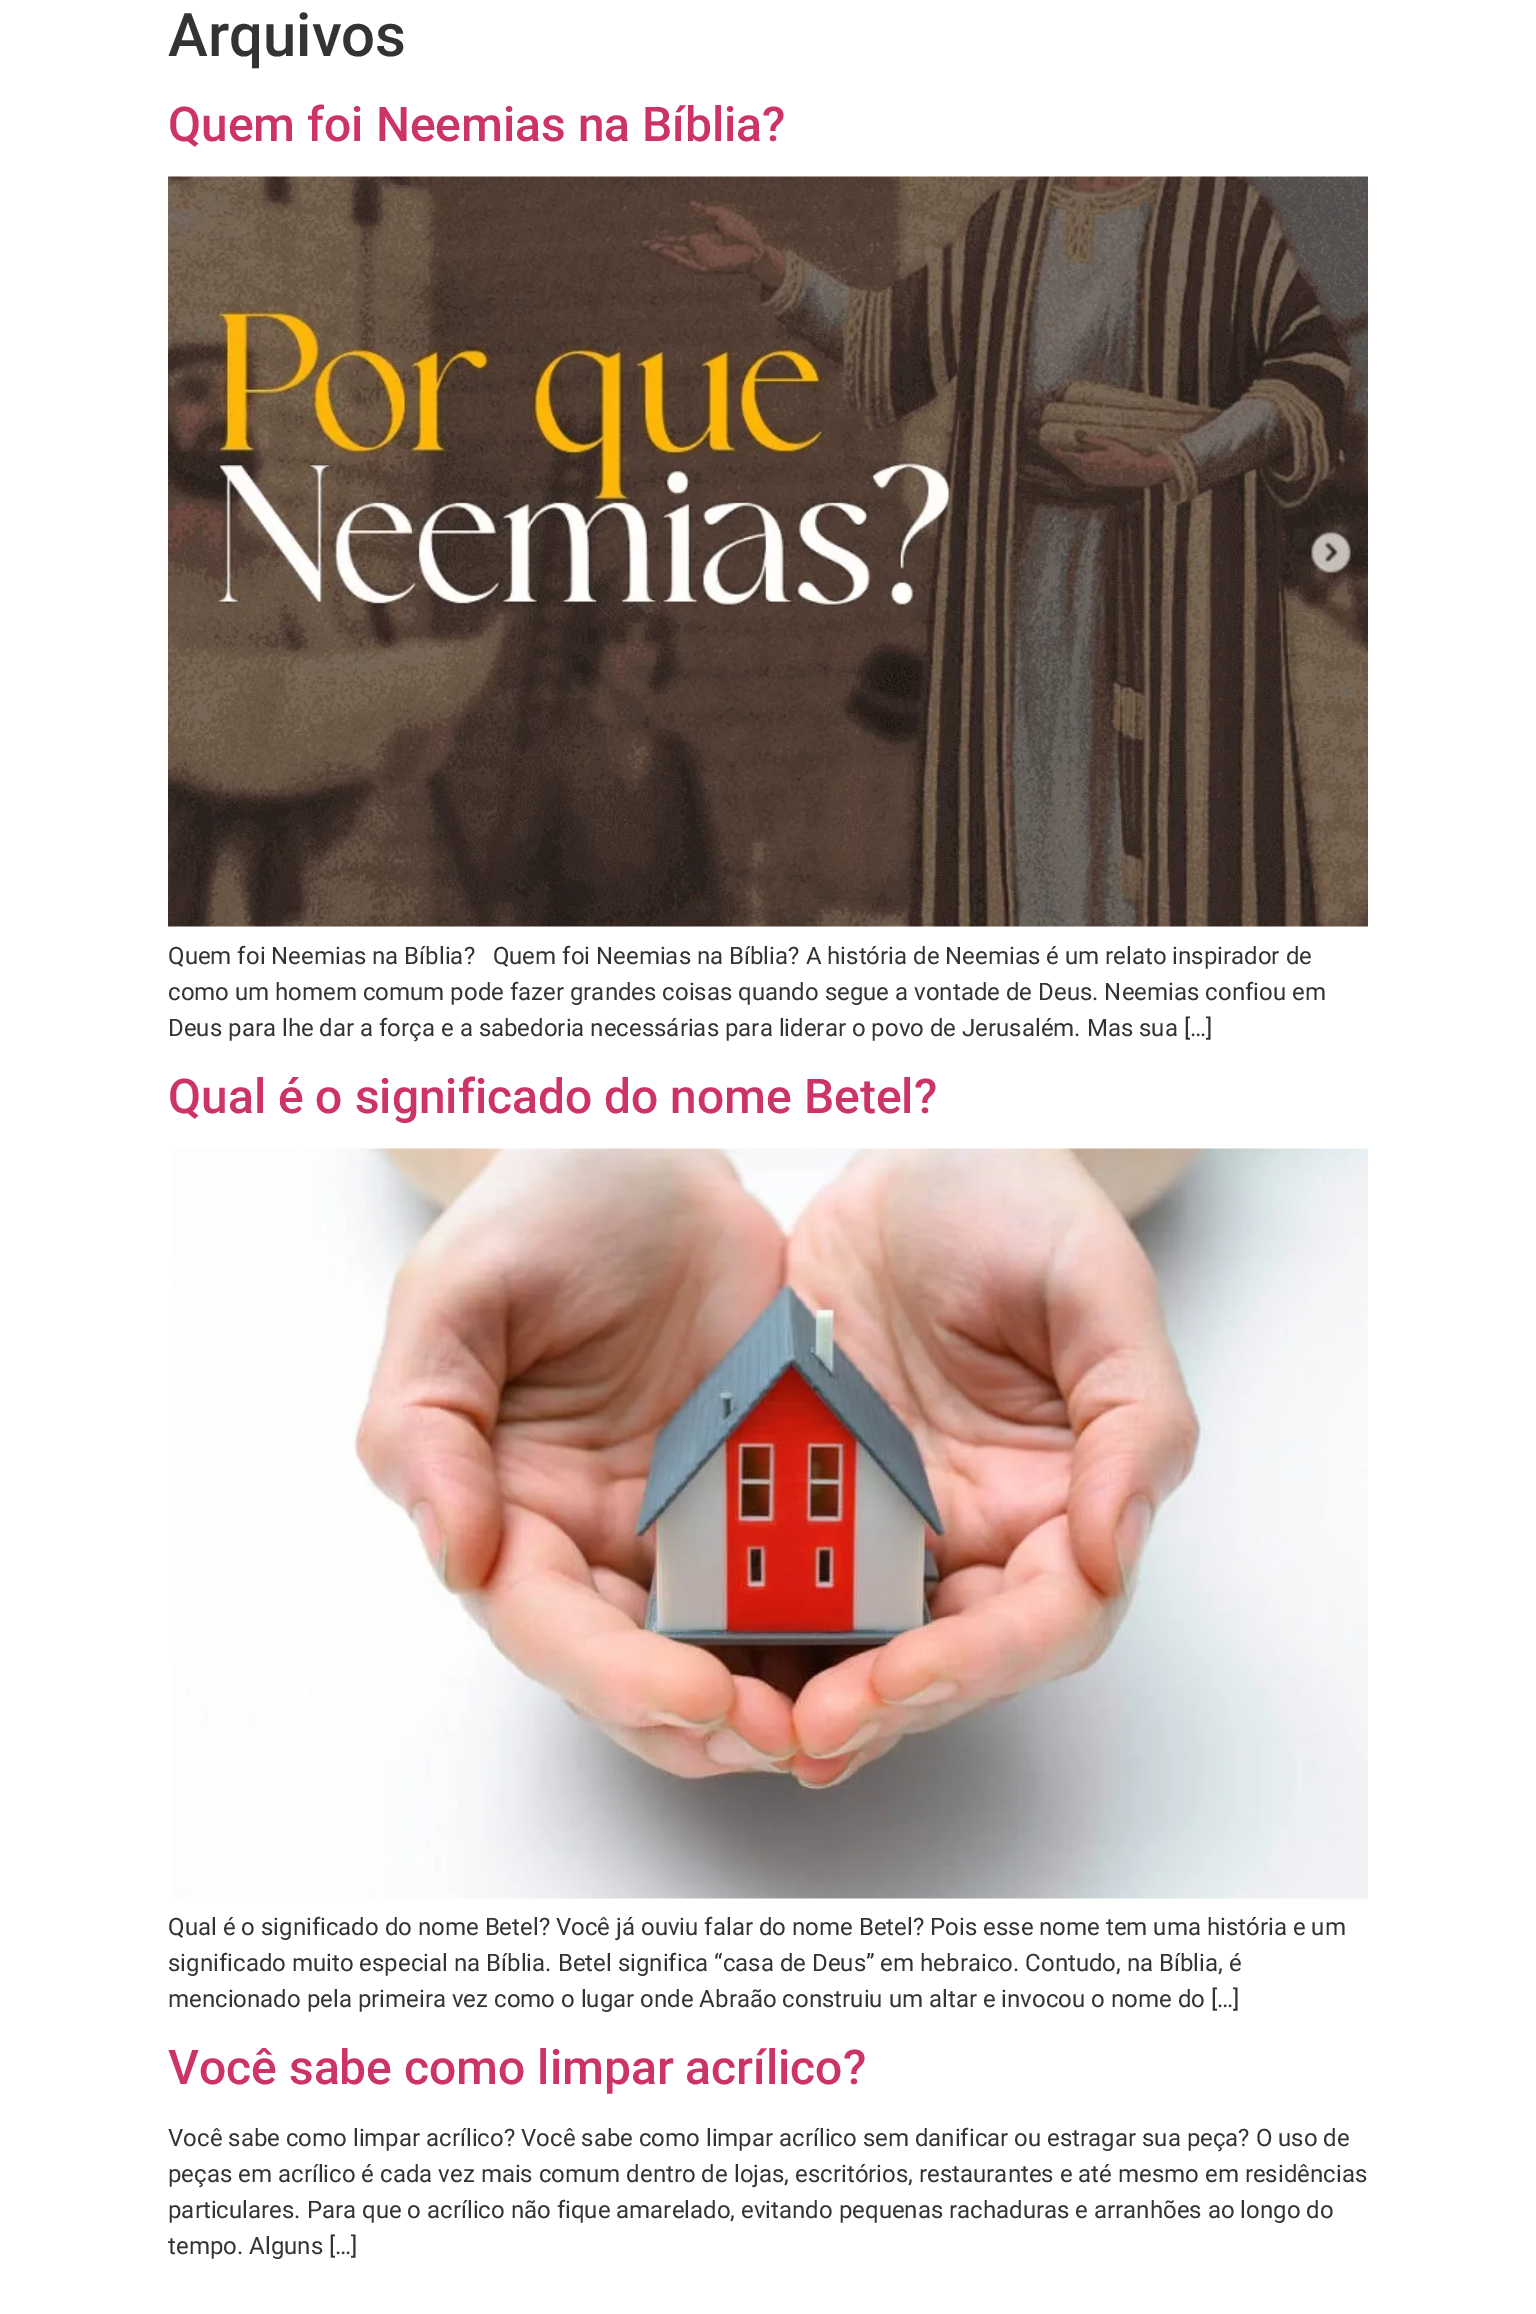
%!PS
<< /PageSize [1536 2314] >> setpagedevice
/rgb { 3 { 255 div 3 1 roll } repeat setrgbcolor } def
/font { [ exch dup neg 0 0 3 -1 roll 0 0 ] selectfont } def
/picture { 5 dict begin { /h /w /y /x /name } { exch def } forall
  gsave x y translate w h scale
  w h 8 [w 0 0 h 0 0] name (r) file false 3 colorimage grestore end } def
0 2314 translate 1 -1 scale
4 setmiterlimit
255 255 255 rgb
0 0 1536 2314 rectfill
(img/1.rgb) 168 176 1200 751 picture
(img/2.rgb) 172 1148 1196 751 picture
/Roboto-Medium 60 font
51 51 51 rgb
168 56 moveto (Arquivos) show
/Roboto-Medium 48 font
204 51 102 rgb
168 141 moveto (Quem foi Neemias na Bíblia?) show
/Roboto-Regular 24 font
51 51 51 rgb
[
  [(Quem foi Neemias na Bíblia?   Quem foi Neemias na Bíblia? A história de Neemias é um relato inspirador de) 168 964]
  [(como um homem comum pode fazer grandes coisas quando segue a vontade de Deus. Neemias confiou em) 168 1000]
  [(Deus para lhe dar a força e a sabedoria necessárias para liderar o povo de Jerusalém. Mas sua […]) 168 1036]
] { aload pop moveto show } forall
/Roboto-Medium 48 font
204 51 102 rgb
168 1113 moveto (Qual é o significado do nome Betel?) show
/Roboto-Regular 24 font
51 51 51 rgb
[
  [(Qual é o significado do nome Betel? Você já ouviu falar do nome Betel? Pois esse nome tem uma história e um) 168 1935]
  [(significado muito especial na Bíblia. Betel significa “casa de Deus” em hebraico. Contudo, na Bíblia, é) 168 1971]
  [(mencionado pela primeira vez como o lugar onde Abraão construiu um altar e invocou o nome do […]) 168 2007]
] { aload pop moveto show } forall
/Roboto-Medium 48 font
204 51 102 rgb
168 2084 moveto (Você sabe como limpar acrílico?) show
/Roboto-Regular 24 font
51 51 51 rgb
[
  [(Você sabe como limpar acrílico? Você sabe como limpar acrílico sem danificar ou estragar sua peça? O uso de) 168 2146]
  [(peças em acrílico é cada vez mais comum dentro de lojas, escritórios, restaurantes e até mesmo em residências) 168 2182]
  [(particulares. Para que o acrílico não fique amarelado, evitando pequenas rachaduras e arranhões ao longo do) 168 2218]
  [(tempo. Alguns […]) 168 2254]
] { aload pop moveto show } forall
showpage
